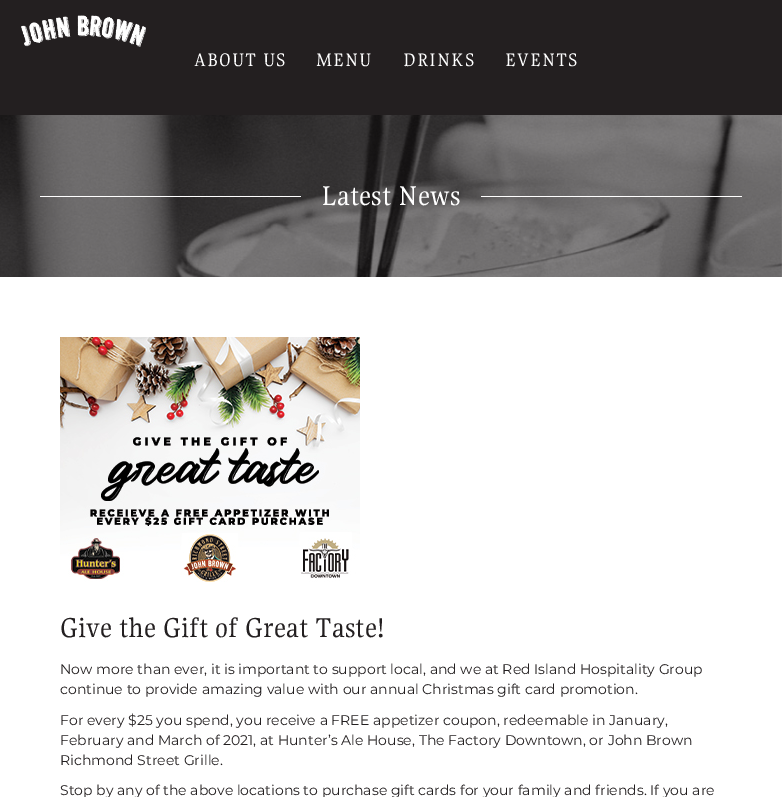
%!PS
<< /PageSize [782 797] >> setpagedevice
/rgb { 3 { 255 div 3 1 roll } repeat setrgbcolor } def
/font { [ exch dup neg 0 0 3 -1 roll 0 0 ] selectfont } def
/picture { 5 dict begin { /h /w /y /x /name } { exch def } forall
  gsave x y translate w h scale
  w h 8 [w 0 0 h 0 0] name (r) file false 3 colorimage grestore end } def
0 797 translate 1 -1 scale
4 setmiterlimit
255 255 255 rgb
0 0 782 797 rectfill
35 31 32 rgb
0 0 782 115 rectfill
(img/1.rgb) 21 15 125 32 picture
(img/2.rgb) 0 115 782 162 picture
255 255 255 rgb
40 196 261 1 rectfill
481 196 261 1 rectfill
(img/3.rgb) 60 337 300 245 picture
/Gupter-Regular 20 font
194 66 moveto 1 0 (ABOUT US) ashow
316 66 moveto 1 0 (MENU) ashow
403 66 moveto 1 0 (DRINKS) ashow
505 66 moveto 1 0 (EVENTS) ashow
/Gupter-Regular 30 font
321 205 moveto (Latest News) show
35 31 32 rgb
60 637 moveto (Give the Gift of Great Taste!) show
/Montserrat-Thin 14 font
[
  [(Now more than ever, it is important to support local, and we at Red Island Hospitality Group) 60 674]
  [(continue to provide amazing value with our annual Christmas gift card promotion.) 60 694]
  [(For every $25 you spend, you receive a FREE appetizer coupon, redeemable in January,) 60 725]
  [(February and March of 2021, at Hunter’s Ale House, The Factory Downtown, or John Brown) 60 745]
  [(Richmond Street Grille.) 60 765]
  [(Stop by any of the above locations to purchase gift cards for your family and friends. If you are) 60 795]
] { aload pop moveto show } forall
showpage
